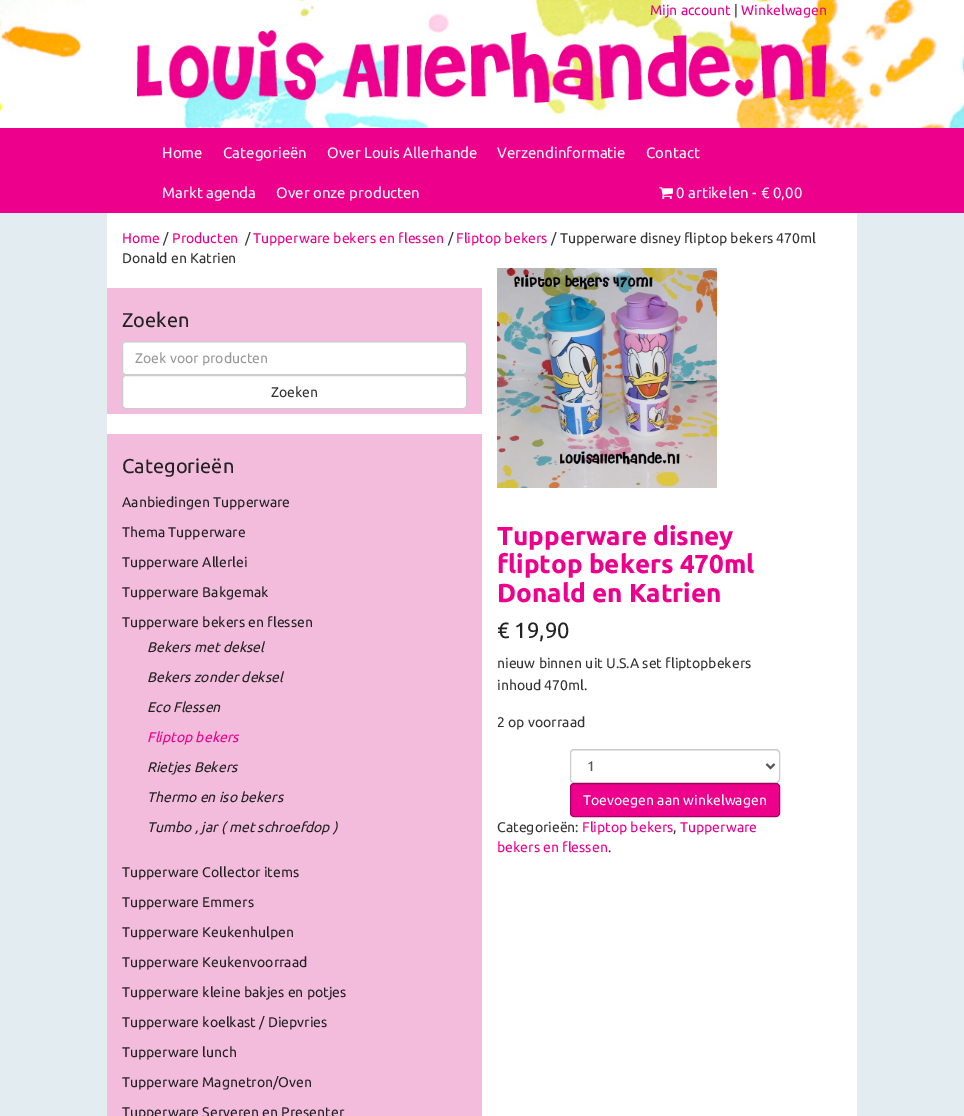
%!PS
<< /PageSize [964 1116] >> setpagedevice
/rgb { 3 { 255 div 3 1 roll } repeat setrgbcolor } def
/font { [ exch dup neg 0 0 3 -1 roll 0 0 ] selectfont } def
/roundrect { 5 dict begin { /r /h /w /y /x } { exch def } forall
  x r add y moveto x w add y 2 copy h add r arct x w add y h add x 1 index r arct
  x y h add x y r arct x y 2 copy exch w add exch r arct closepath end } def
/picture { 5 dict begin { /h /w /y /x /name } { exch def } forall
  gsave x y translate w h scale
  w h 8 [w 0 0 h 0 0] name (r) file false 3 colorimage grestore end } def
0 1116 translate 1 -1 scale
4 setmiterlimit
227 236 240 rgb
0 0 964 1116 rectfill
(img/1.rgb) 0 0 964 128 picture
(img/2.rgb) 137 30 690 73 picture
236 0 140 rgb
0 128 964 85 rectfill
(img/3.rgb) 659 187 14 13 picture
255 255 255 rgb
107 213 750 903 rectfill
243 188 221 rgb
107 288 375 126 rectfill
255 255 255 rgb
122 341 345 34 4 roundrect fill
236 236 236 rgb
126 343 moveto 463 343 lineto 465 343 466 344 466 346 curveto 466 344 465 342 463 342 curveto 126 342 lineto 124 342 123 344 123 346 curveto 123 344 124 343 126 343 curveto closepath fill
204 204 204 rgb
122.5 341.5 344 33 3.5 roundrect stroke
255 255 255 rgb
122.5 375.5 344 33 3.5 roundrect gsave fill grestore
204 204 204 rgb
stroke
243 188 221 rgb
107 434 375 682 rectfill
(img/4.rgb) 497 268 220 220 picture
236 236 236 rgb
574 751 moveto 776 751 lineto 778 751 779 752 779 754 curveto 779 752 778 750 776 750 curveto 573 750 lineto 571 751 571 752 571 754 curveto 571 752 572 751 574 751 curveto closepath fill
204 204 204 rgb
570.5 749.5 209 33 3.5 roundrect stroke
85 85 85 rgb
2 setlinewidth
766.5 764 moveto 770.5 768 lineto 774.5 764 lineto stroke
236 0 140 rgb
570.5 783.5 209 33 3.5 roundrect gsave fill grestore
165 0 98 rgb
1 setlinewidth
stroke
/Ubuntu-Regular 14 font
236 0 140 rgb
650 15 moveto (Mijn account) show
51 51 51 rgb
734 15 moveto (|) show
236 0 140 rgb
741 15 moveto (Winkelwagen) show
/Ubuntu-Regular 15 font
255 255 255 rgb
[
  [(Home) 162 158]
  [(Categorieën) 223 158]
  [(Over Louis Allerhande) 327 158]
  [(Verzendinformatie) 497 158]
  [(Contact) 646 158]
  [(Markt agenda) 162 198]
  [(Over onze producten) 276 198]
  [(0 artikelen -) 676 198]
  [(€ 0,00) 761 198]
] { aload pop moveto show } forall
/Ubuntu-Regular 14 font
236 0 140 rgb
122 243 moveto (Home) show
51 51 51 rgb
163 243 moveto (/) show
236 0 140 rgb
172 243 moveto (Producten) show
51 51 51 rgb
245 243 moveto (/) show
236 0 140 rgb
253 243 moveto (Tupperware bekers en flessen) show
51 51 51 rgb
448 243 moveto (/) show
236 0 140 rgb
456 243 moveto (Fliptop bekers) show
51 51 51 rgb
551 243 moveto (/ Tupperware disney fliptop bekers 470ml) show
122 263 moveto (Donald en Katrien) show
/Ubuntu-Regular 20 font
34 34 34 rgb
122 327 moveto (Zoeken) show
/Ubuntu-Regular 14 font
153 153 153 rgb
135 363 moveto (Zoek voor producten) show
51 51 51 rgb
271 397 moveto (Zoeken) show
/Ubuntu-Regular 20 font
34 34 34 rgb
122 473 moveto (Categorieën) show
/Ubuntu-Regular 14 font
[
  [(Aanbiedingen Tupperware) 122 507]
  [(Thema Tupperware) 122 537]
  [(Tupperware Allerlei) 122 567]
  [(Tupperware Bakgemak) 122 597]
  [(Tupperware bekers en flessen) 122 627]
] { aload pop moveto show } forall
/Ubuntu-Italic 14 font
[
  [(Bekers met deksel) 147 652]
  [(Bekers zonder deksel) 147 682]
  [(Eco Flessen) 147 712]
] { aload pop moveto show } forall
236 0 140 rgb
147 742 moveto (Fliptop bekers) show
34 34 34 rgb
[
  [(Rietjes Bekers) 147 772]
  [(Thermo en iso bekers) 147 802]
  [(Tumbo , jar \( met schroefdop \)) 147 832]
] { aload pop moveto show } forall
/Ubuntu-Regular 14 font
[
  [(Tupperware Collector items) 122 877]
  [(Tupperware Emmers) 122 907]
  [(Tupperware Keukenhulpen) 122 937]
  [(Tupperware Keukenvoorraad) 122 967]
  [(Tupperware kleine bakjes en potjes) 122 997]
  [(Tupperware koelkast / Diepvries) 122 1027]
  [(Tupperware lunch) 122 1057]
  [(Tupperware Magnetron/Oven) 122 1087]
  [(Tupperware Serveren en Presenter) 122 1117]
] { aload pop moveto show } forall
/Ubuntu-Bold 26 font
236 0 140 rgb
[
  [(Tupperware disney) 497 545]
  [(fliptop bekers 470ml) 497 573]
  [(Donald en Katrien) 497 602]
] { aload pop moveto show } forall
/Ubuntu-Regular 22 font
34 34 34 rgb
497 638 moveto (€ 19,90) show
/Ubuntu-Regular 14 font
51 51 51 rgb
[
  [(nieuw binnen uit U.S.A set fliptopbekers) 497 668]
  [(inhoud 470ml.) 497 690]
  [(2 op voorraad) 497 727]
] { aload pop moveto show } forall
85 85 85 rgb
587 771 moveto (1) show
255 255 255 rgb
583 805 moveto (Toevoegen aan winkelwagen) show
51 51 51 rgb
497 832 moveto (Categorieën:) show
236 0 140 rgb
582 832 moveto (Fliptop bekers) show
51 51 51 rgb
673 832 moveto (,) show
236 0 140 rgb
680 832 moveto (Tupperware) show
497 852 moveto (bekers en flessen) show
51 51 51 rgb
608 852 moveto (.) show
showpage
